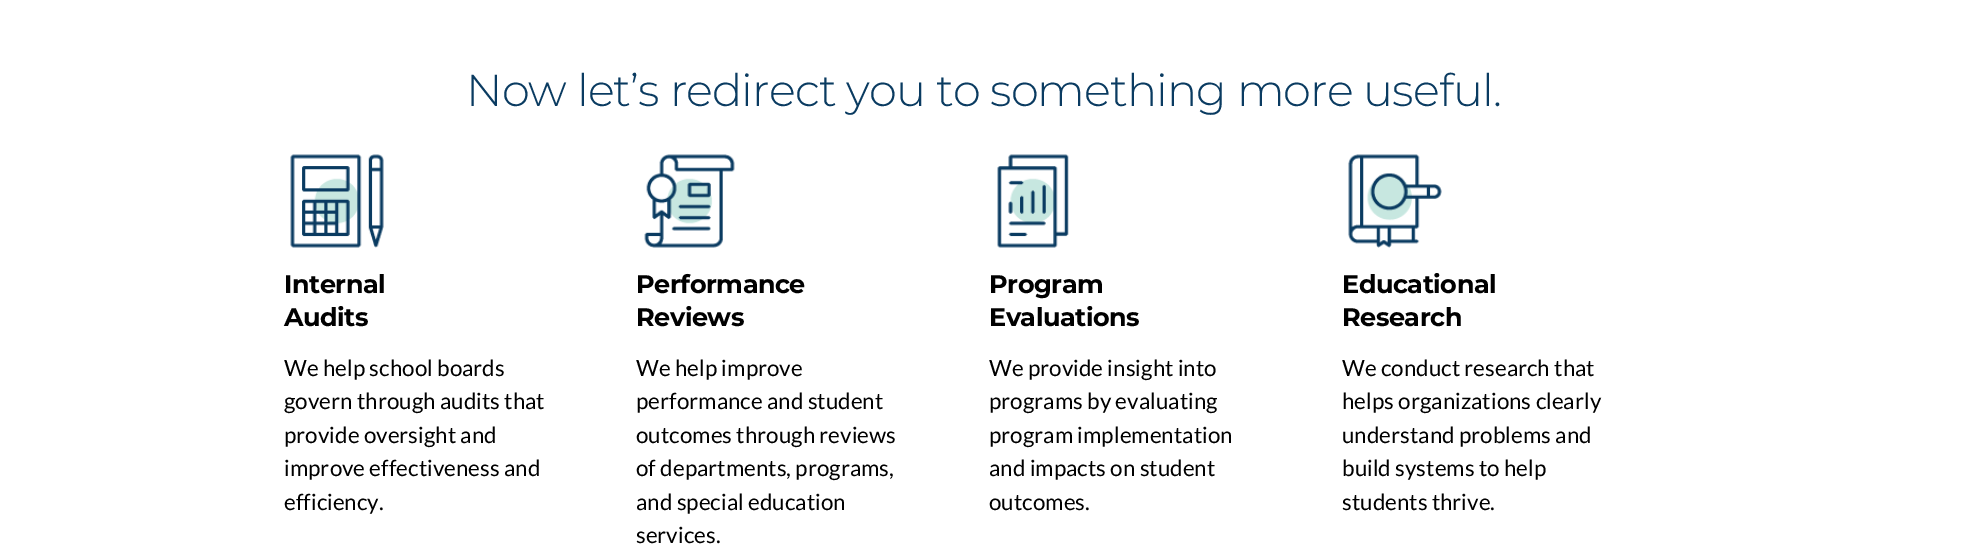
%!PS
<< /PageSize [1967 556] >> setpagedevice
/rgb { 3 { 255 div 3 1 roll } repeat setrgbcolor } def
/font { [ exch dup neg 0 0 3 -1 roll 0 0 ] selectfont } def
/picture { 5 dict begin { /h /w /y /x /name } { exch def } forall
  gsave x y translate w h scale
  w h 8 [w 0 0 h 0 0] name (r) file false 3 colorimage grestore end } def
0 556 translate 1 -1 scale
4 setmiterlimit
255 255 255 rgb
0 0 1967 556 rectfill
(img/1.rgb) 290 154 94 94 picture
(img/2.rgb) 644 154 91 94 picture
(img/3.rgb) 997 154 72 94 picture
(img/4.rgb) 1348 154 94 94 picture
/Montserrat-Light 44.8 font
10 59 97 rgb
466 106 moveto -0.9 0 (Now let’s redirect you to something more useful.) ashow
/Montserrat-Bold 25.5 font
0 0 0 rgb
284 293 moveto -0.5 0 (Internal) ashow
284 326 moveto -0.5 0 (Audits) ashow
636 293 moveto -0.5 0 (Performance) ashow
636 326 moveto -0.5 0 (Reviews) ashow
989 293 moveto -0.5 0 (Program) ashow
989 326 moveto -0.5 0 (Evaluations) ashow
1342 293 moveto -0.5 0 (Educational) ashow
1342 326 moveto -0.5 0 (Research) ashow
/Lato-Regular 22.4 font
[
  [(We help school boards) 284 376]
  [(govern through audits that) 284 409]
  [(provide oversight and) 284 443]
  [(improve effectiveness and) 284 476]
  [(efficiency.) 284 510]
  [(We help improve) 636 376]
  [(performance and student) 636 409]
  [(outcomes through reviews) 636 443]
  [(of departments, programs,) 636 476]
  [(and special education) 636 510]
  [(services.) 636 543]
  [(We provide insight into) 989 376]
  [(programs by evaluating) 989 409]
  [(program implementation) 989 443]
  [(and impacts on student) 989 476]
  [(outcomes.) 989 510]
  [(We conduct research that) 1342 376]
  [(helps organizations clearly) 1342 409]
  [(understand problems and) 1342 443]
  [(build systems to help) 1342 476]
  [(students thrive.) 1342 510]
] { aload pop moveto show } forall
showpage
